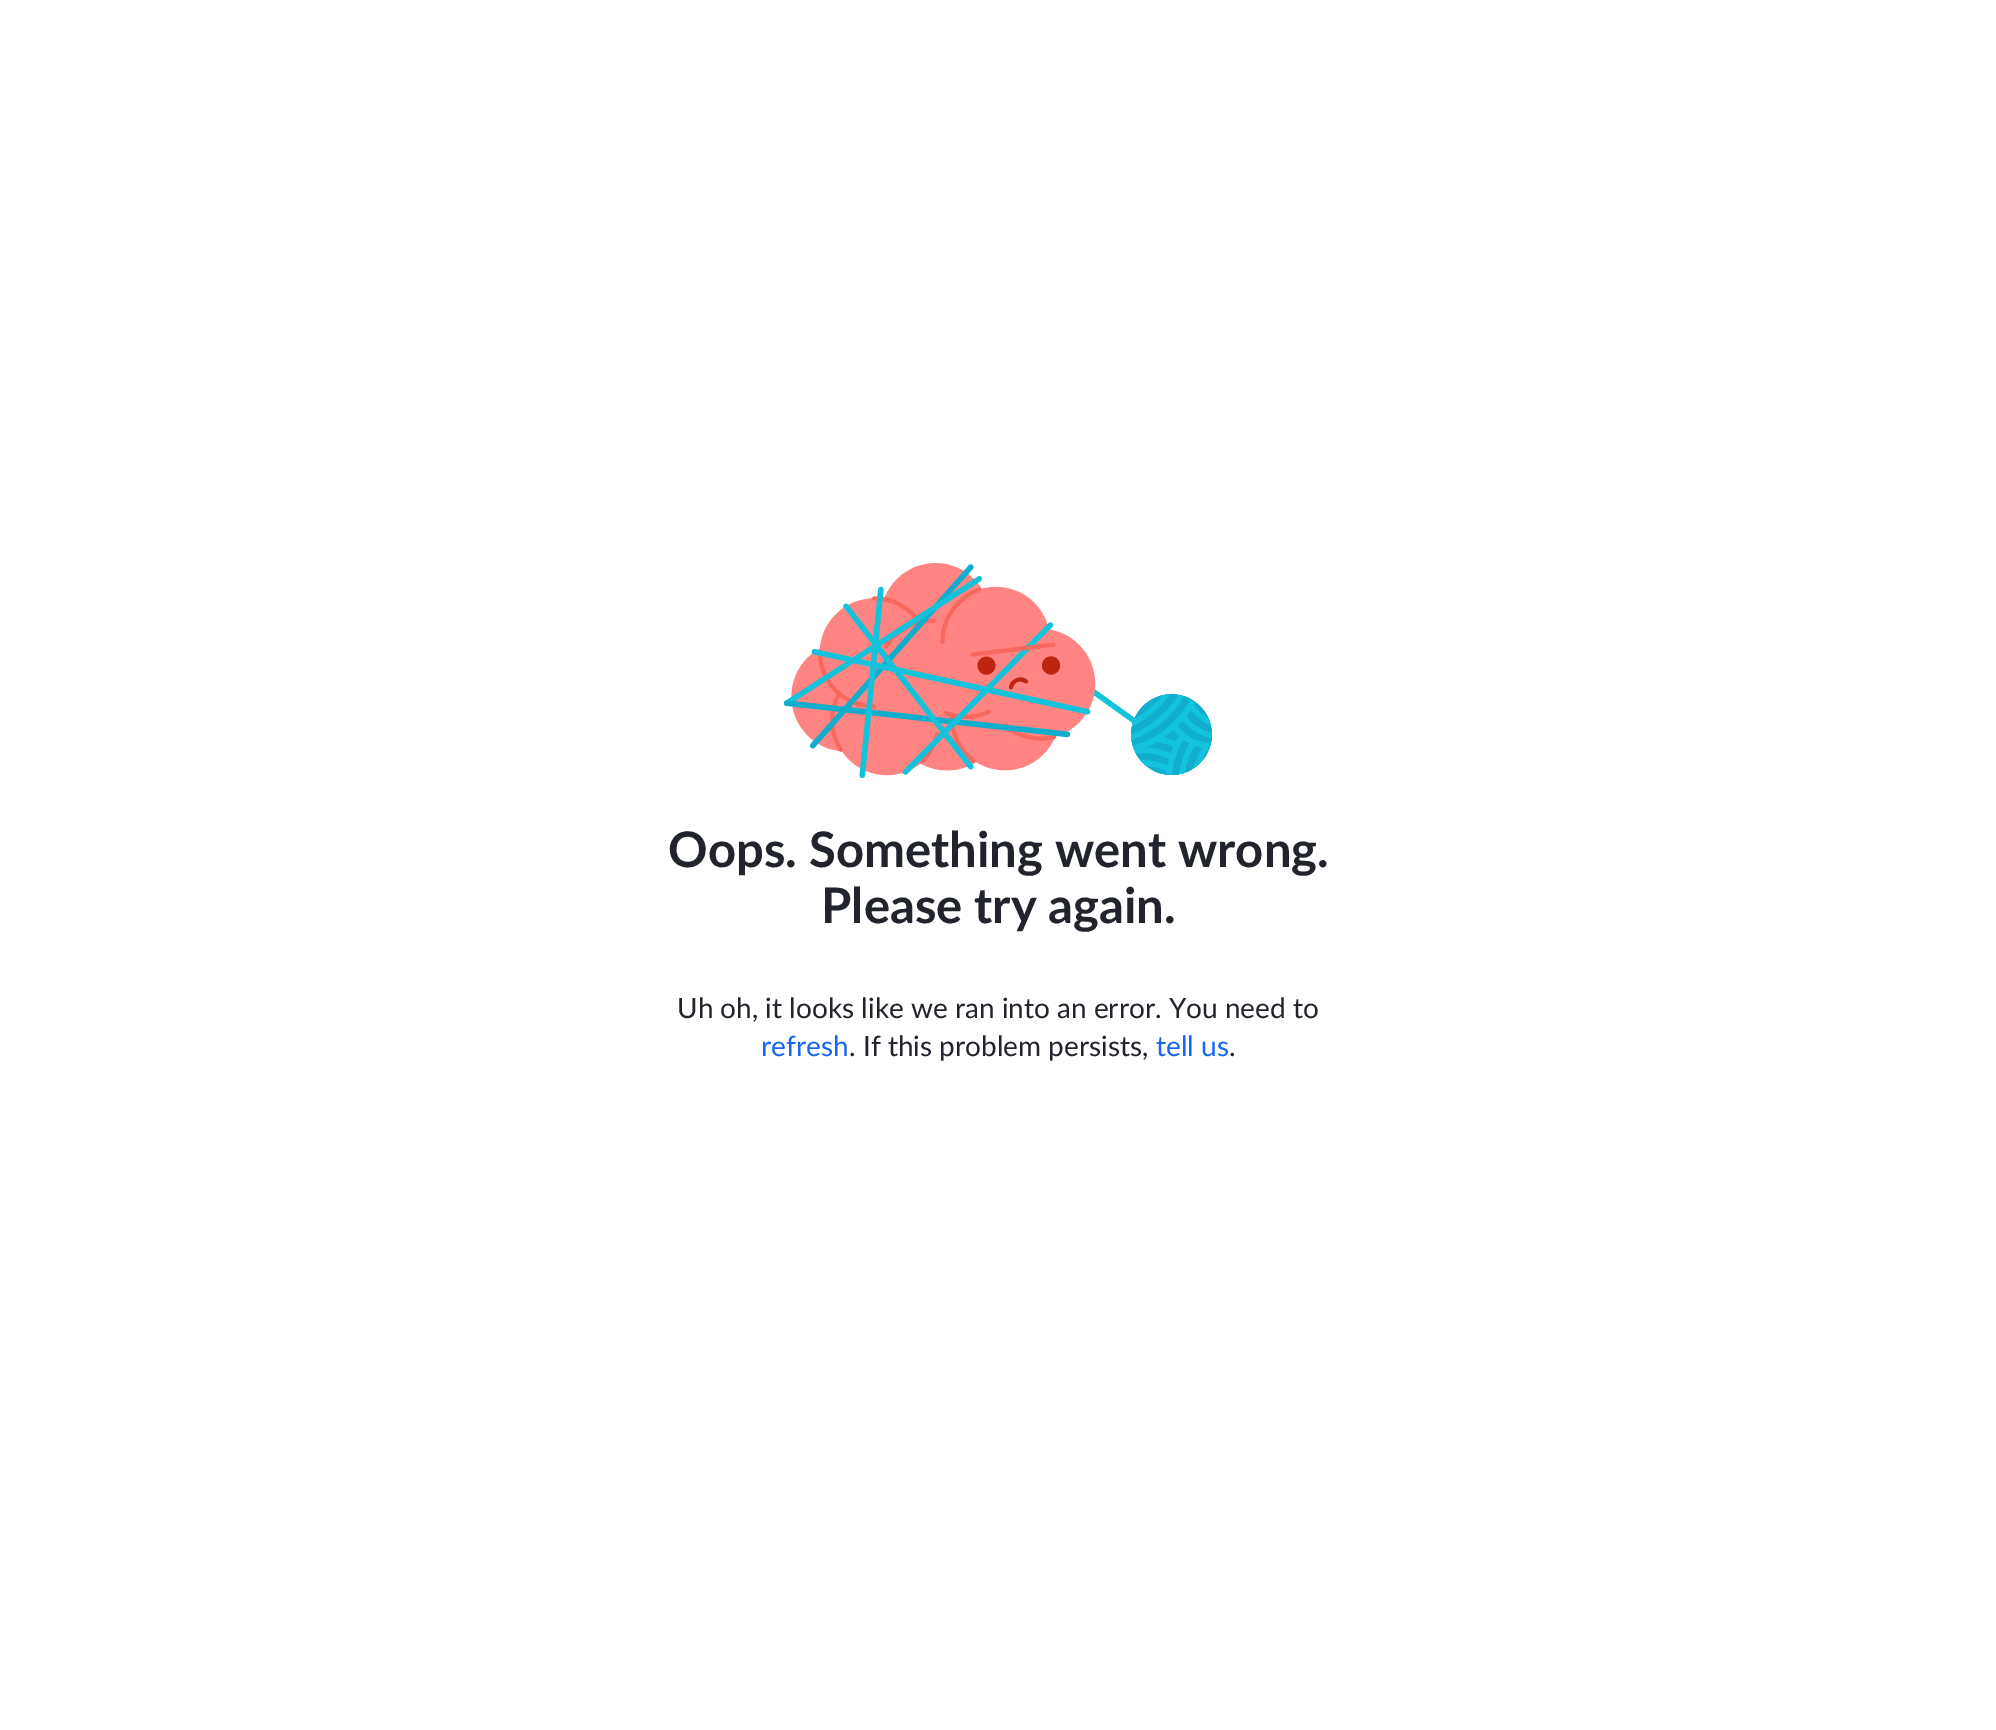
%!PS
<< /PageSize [1996 1730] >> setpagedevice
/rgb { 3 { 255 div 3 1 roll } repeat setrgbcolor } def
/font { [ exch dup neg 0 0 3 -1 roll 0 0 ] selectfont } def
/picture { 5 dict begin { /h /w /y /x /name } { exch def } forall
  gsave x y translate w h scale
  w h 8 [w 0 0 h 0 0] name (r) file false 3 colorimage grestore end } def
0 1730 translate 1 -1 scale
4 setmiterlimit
255 255 255 rgb
0 0 1996 1730 rectfill
(img/1.rgb) 784 563 428 215 picture
/Lato-Bold 49 font
33 36 44 rgb
668 867 moveto (Oops. Something went wrong.) show
821 923 moveto (Please try again.) show
/Lato-Regular 28 font
677 1018 moveto (Uh oh, it looks like we ran into an error. You need to) show
24 101 242 rgb
761 1056 moveto (refresh) show
33 36 44 rgb
849 1056 moveto (. If this problem persists,) show
24 101 242 rgb
1156 1056 moveto (tell us) show
33 36 44 rgb
1229 1056 moveto (.) show
showpage
